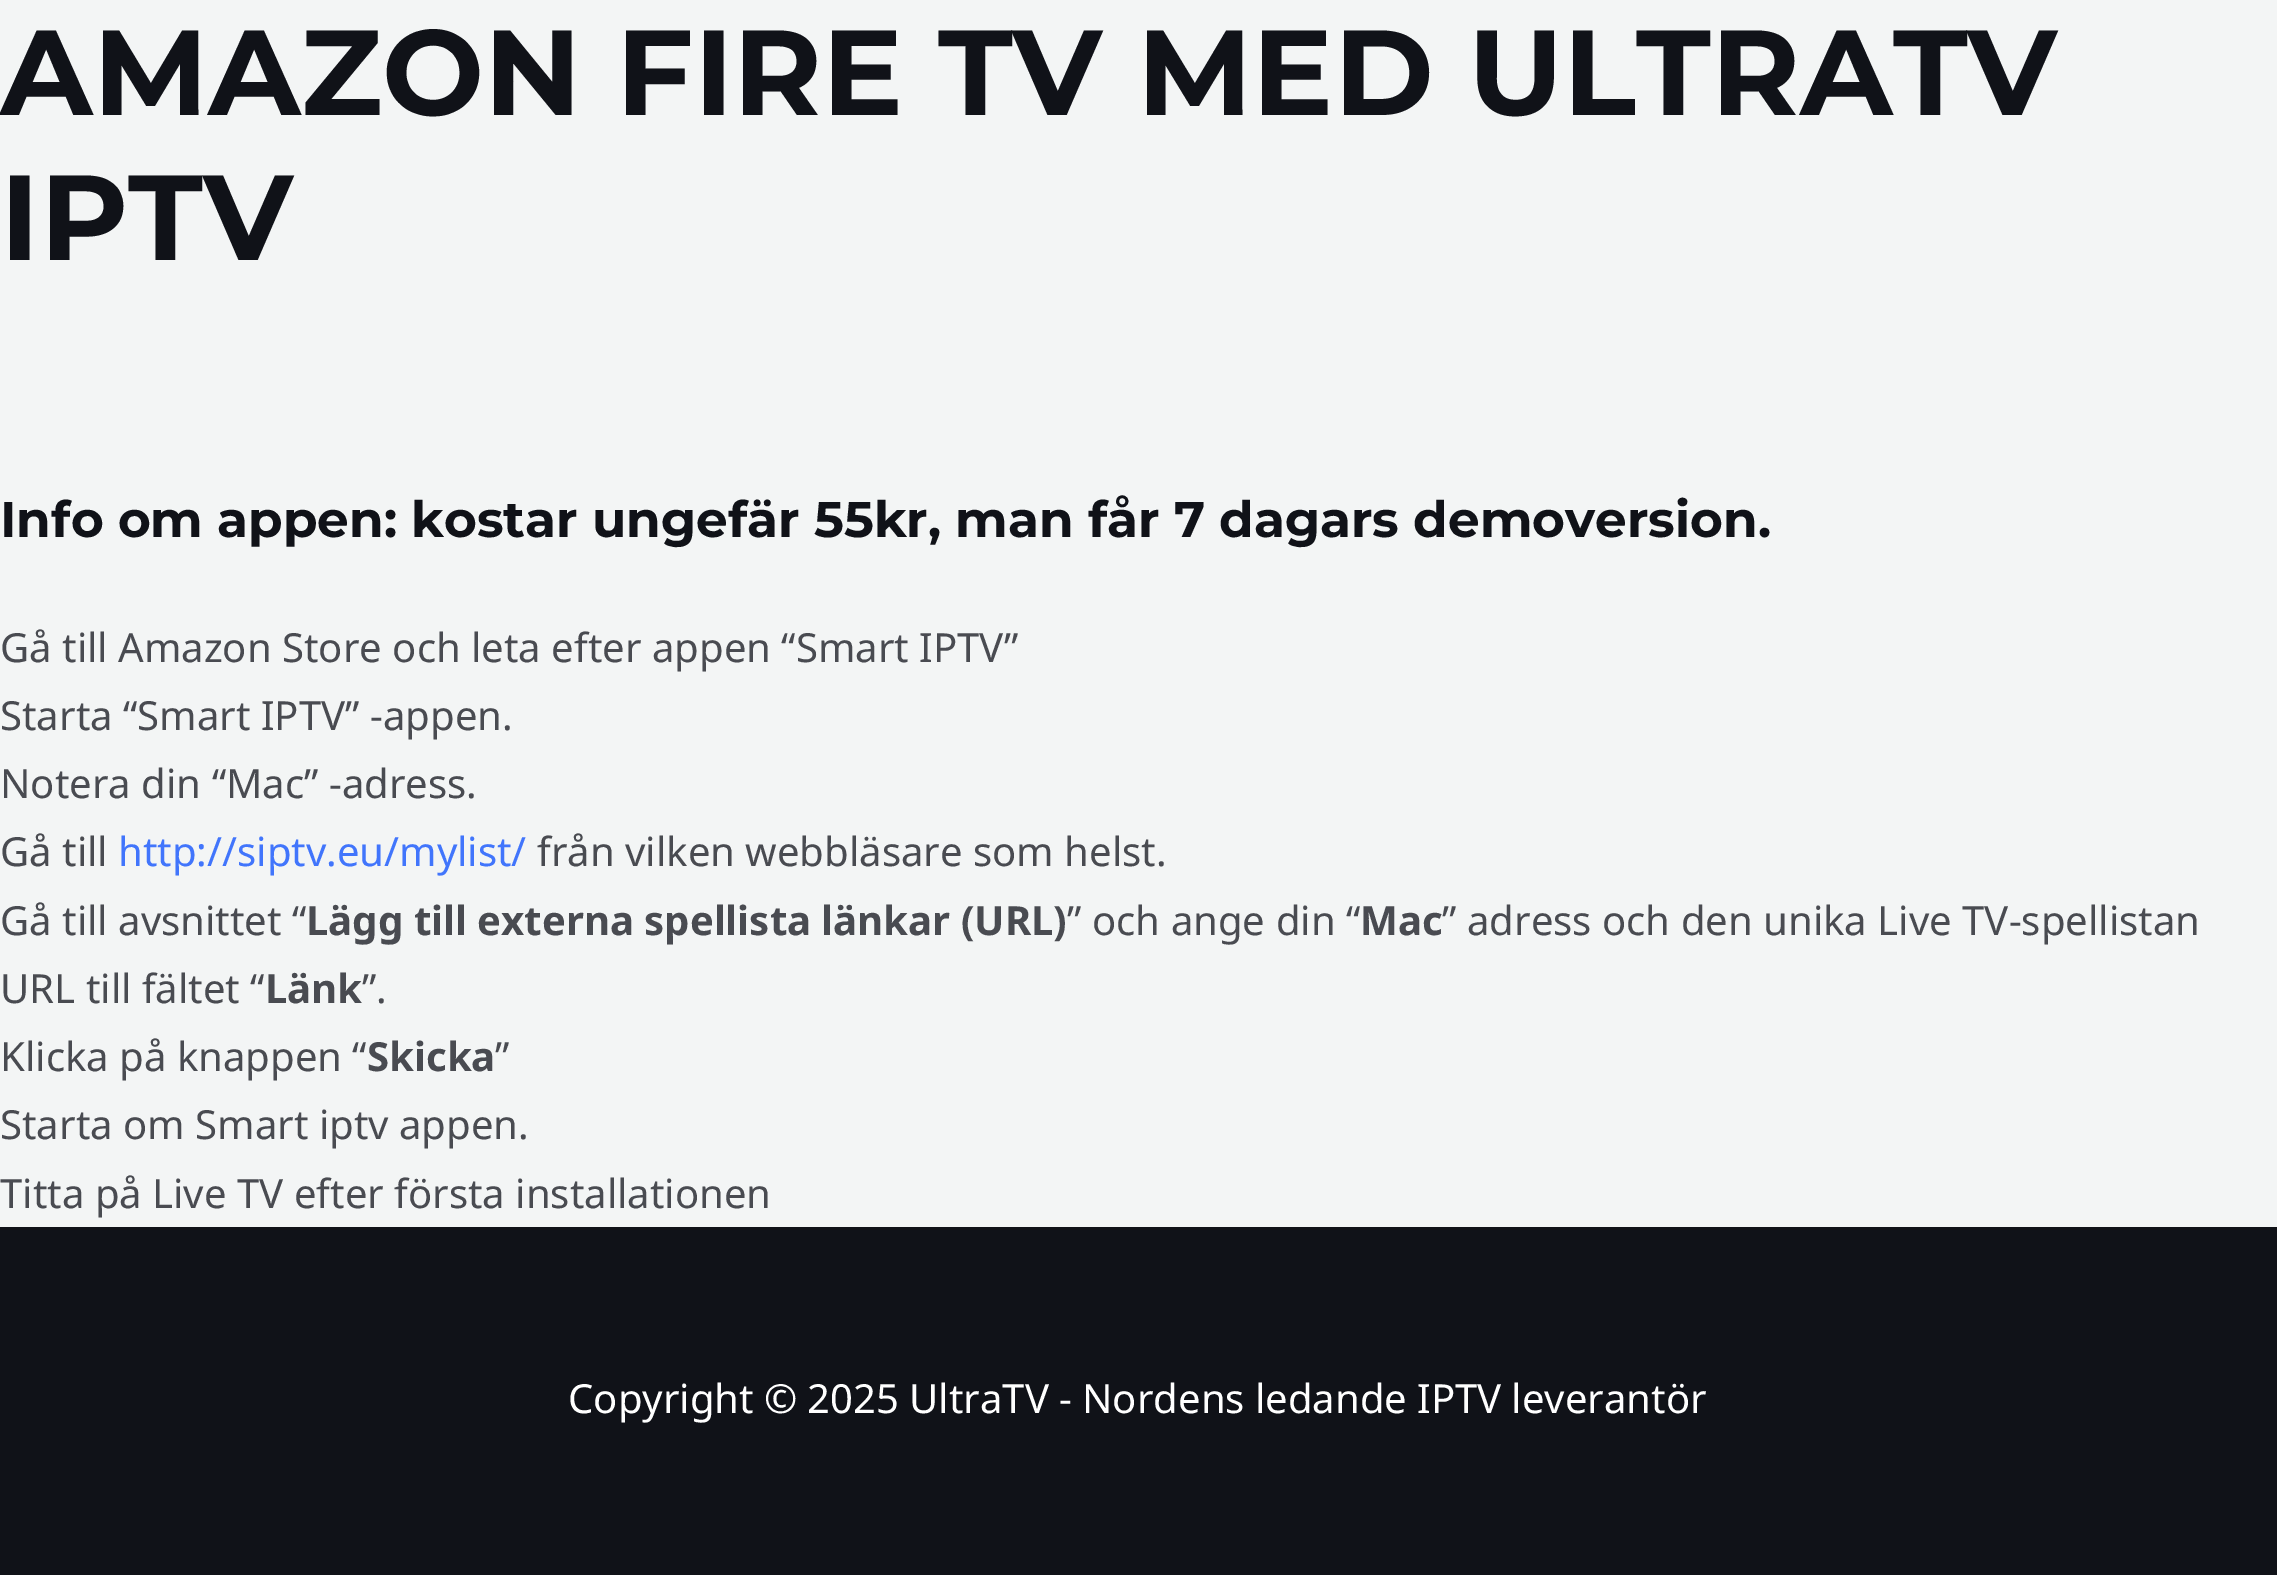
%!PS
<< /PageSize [2277 1575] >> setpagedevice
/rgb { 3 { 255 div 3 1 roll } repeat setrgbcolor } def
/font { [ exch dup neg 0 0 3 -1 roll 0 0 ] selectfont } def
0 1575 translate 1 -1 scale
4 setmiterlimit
243 245 245 rgb
0 0 2277 1575 rectfill
16 18 24 rgb
0 1227 2277 348 rectfill
/Montserrat-Thin 121 font
0 115 moveto (AMAZON FIRE TV MED ULTRATV) show
0 260 moveto (IPTV) show
/Montserrat-Thin 50.15 font
0 537 moveto (Info om appen: kostar ungefär 55kr, man får 7 dagars demoversion.) show
/NotoSans-Regular 40.1 font
73 75 81 rgb
[
  [(Gå till Amazon Store och leta efter appen “Smart IPTV”) 0 662]
  [(Starta “Smart IPTV” -appen.) 0 730]
  [(Notera din “Mac” -adress.) 0 798]
  [(Gå till) 0 866]
] { aload pop moveto show } forall
65 117 252 rgb
118 866 moveto (http://siptv.eu/mylist/) show
73 75 81 rgb
537 866 moveto (från vilken webbläsare som helst.) show
0 935 moveto (Gå till avsnittet “) show
/NotoSans-Bold 40.1 font
306 935 moveto (Lägg till externa spellista länkar \(URL\)) show
/NotoSans-Regular 40.1 font
1067 935 moveto (” och ange din “) show
/NotoSans-Bold 40.1 font
1360 935 moveto (Mac) show
/NotoSans-Regular 40.1 font
1442 935 moveto (” adress och den unika Live TV-spellistan) show
0 1003 moveto (URL till fältet “) show
/NotoSans-Bold 40.1 font
265 1003 moveto (Länk) show
/NotoSans-Regular 40.1 font
362 1003 moveto (”.) show
0 1071 moveto (Klicka på knappen “) show
/NotoSans-Bold 40.1 font
367 1071 moveto (Skicka) show
/NotoSans-Regular 40.1 font
[
  [(”) 495 1071]
  [(Starta om Smart iptv appen.) 0 1139]
  [(Titta på Live TV efter första installationen) 0 1208]
] { aload pop moveto show } forall
255 255 255 rgb
568 1413 moveto -0.25 0 32 (Copyright © 2025 UltraTV - Nordens ledande IPTV leverantör) widthshow
showpage
